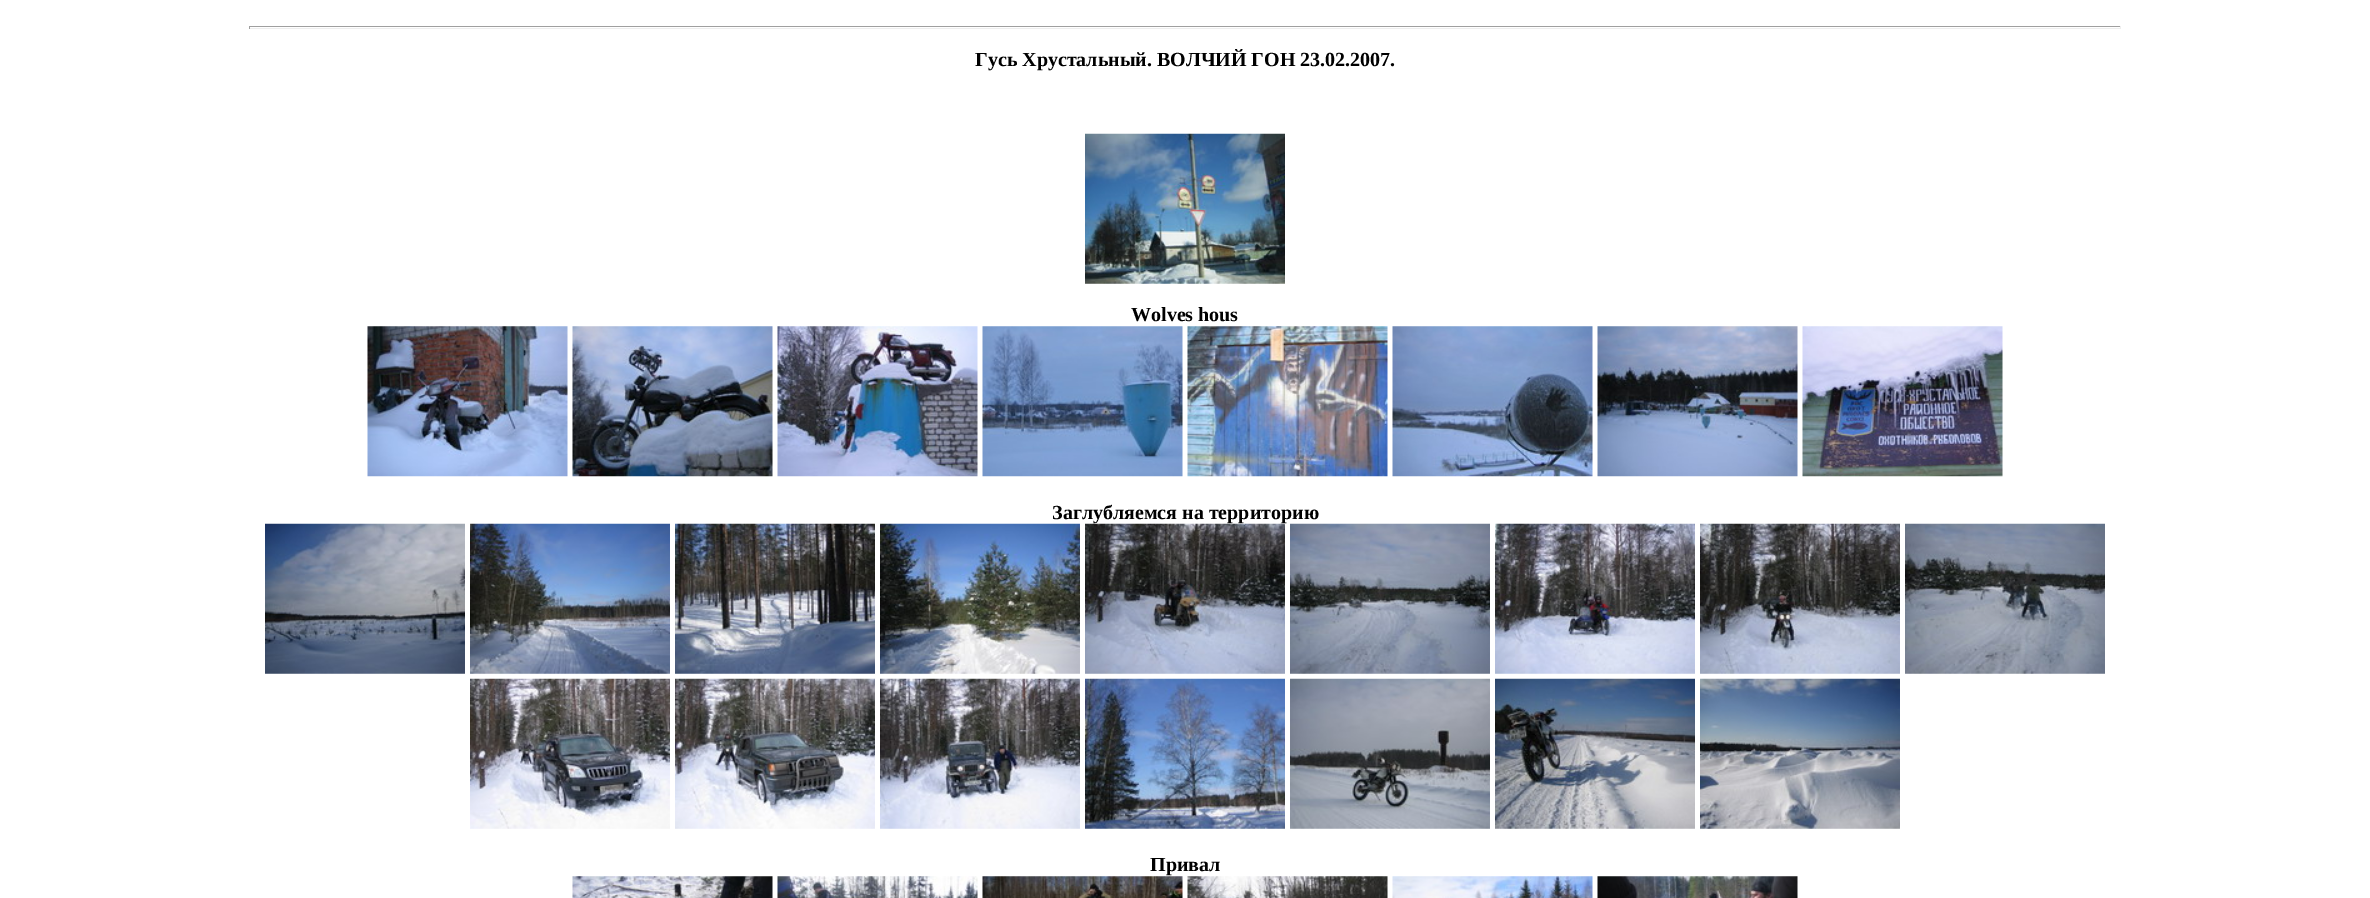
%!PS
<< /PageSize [2370 898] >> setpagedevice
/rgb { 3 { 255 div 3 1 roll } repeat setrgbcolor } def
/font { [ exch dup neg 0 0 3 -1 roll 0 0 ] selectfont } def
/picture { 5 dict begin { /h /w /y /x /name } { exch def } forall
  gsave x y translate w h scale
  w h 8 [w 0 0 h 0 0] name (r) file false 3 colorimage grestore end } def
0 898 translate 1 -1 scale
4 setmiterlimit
255 255 255 rgb
0 0 2370 898 rectfill
[
  [249 26 1872 1 159 159 159]
  [2120 26 1 3 238 238 238]
  [249 28 1872 1 238 238 238]
  [249 26 1 3 159 159 159]
] { aload pop rgb rectfill } forall
(img/1.rgb) 1085 133 200 151 picture
(img/2.rgb) 367 326 201 151 picture
(img/3.rgb) 572 326 201 151 picture
(img/4.rgb) 777 326 201 151 picture
(img/5.rgb) 982 326 201 151 picture
(img/6.rgb) 1187 326 201 151 picture
(img/7.rgb) 1392 326 201 151 picture
(img/8.rgb) 1597 326 201 151 picture
(img/9.rgb) 1802 326 201 151 picture
(img/10.rgb) 265 523 200 151 picture
(img/11.rgb) 470 523 200 151 picture
(img/12.rgb) 675 523 200 151 picture
(img/16.rgb) 1495 523 200 151 picture
(img/17.rgb) 1700 523 200 151 picture
(img/18.rgb) 1905 523 200 151 picture
(img/19.rgb) 470 678 200 151 picture
(img/20.rgb) 675 678 200 151 picture
(img/21.rgb) 880 678 200 151 picture
(img/22.rgb) 1085 678 200 151 picture
(img/23.rgb) 1290 678 200 151 picture
(img/24.rgb) 1495 678 200 151 picture
(img/25.rgb) 1700 678 200 151 picture
(img/26.rgb) 572 876 201 22 picture
(img/27.rgb) 777 876 201 22 picture
(img/28.rgb) 982 876 201 22 picture
(img/29.rgb) 1187 876 201 22 picture
(img/30.rgb) 1392 876 201 22 picture
(img/31.rgb) 1597 876 201 22 picture
/LiberationSerif-Bold 20 font
0 0 0 rgb
[
  [(Гусь Хрустальный. ВОЛЧИЙ ГОН 23.02.2007.) 975 66]
  [(Wolves hous) 1131 321]
  [(Заглубляемся на территорию) 1052 519]
] { aload pop moveto show } forall
(img/13.rgb) 880 523 200 151 picture
(img/14.rgb) 1085 523 200 151 picture
(img/15.rgb) 1290 523 200 151 picture
1150 871 moveto (Привал) show
showpage
